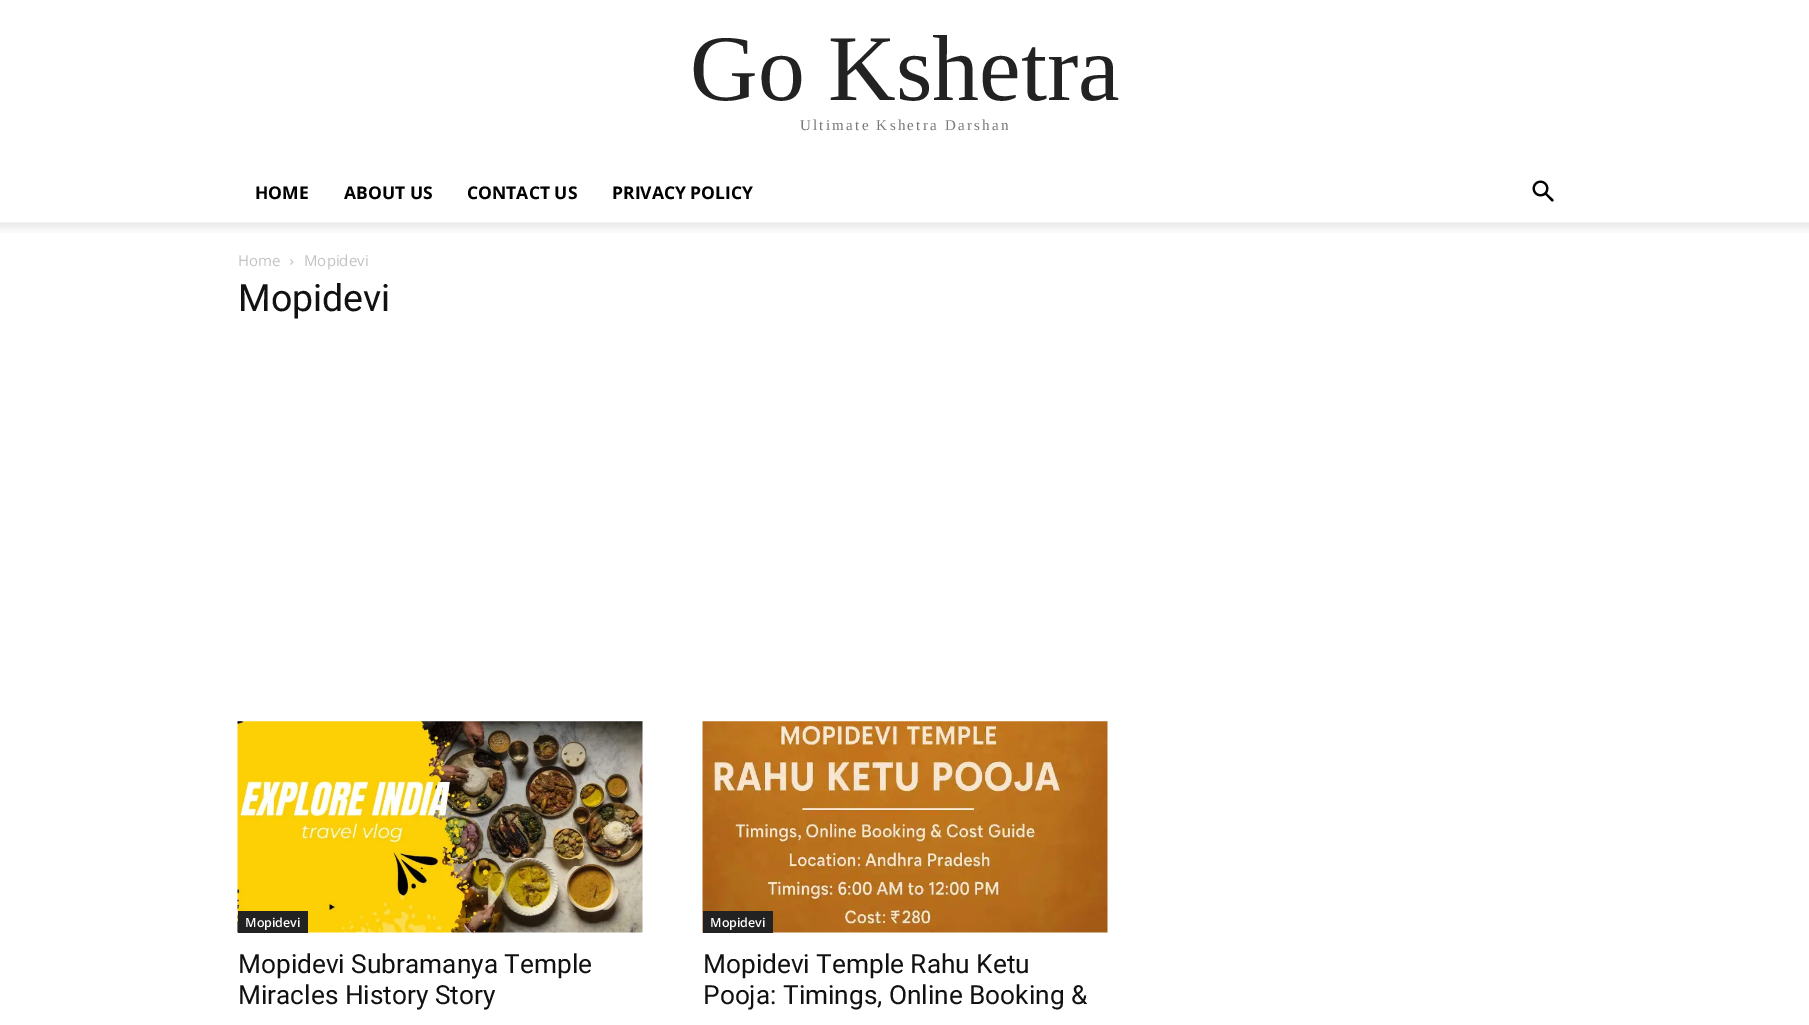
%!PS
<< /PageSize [1809 1025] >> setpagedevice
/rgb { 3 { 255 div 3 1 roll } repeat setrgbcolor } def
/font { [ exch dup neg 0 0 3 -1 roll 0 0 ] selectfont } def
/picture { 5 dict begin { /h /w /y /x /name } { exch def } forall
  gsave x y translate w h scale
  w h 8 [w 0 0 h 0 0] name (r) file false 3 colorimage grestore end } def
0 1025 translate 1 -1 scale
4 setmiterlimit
255 255 255 rgb
0 0 1809 1025 rectfill
(img/1.rgb) 1532 180 22 22 picture
(img/2.rgb) 0 222 1809 11 picture
(img/3.rgb) 290 259 4 6 picture
(img/4.rgb) 237 721 406 212 picture
34 34 34 rgb
238 911 70 22 rectfill
(img/5.rgb) 702 721 406 212 picture
703 911 70 22 rectfill
/LiberationSerif-Regular 93.75 font
690 100 moveto (Go Kshetra) show
/LiberationSerif-Regular 15 font
119 119 119 rgb
800 130 moveto 2.25 0 (Ultimate Kshetra Darshan) ashow
/OpenSans-Bold 17.5 font
0 0 0 rgb
[
  [(HOME) 255 199]
  [(ABOUT US) 344 199]
  [(CONTACT US) 467 199]
  [(PRIVACY POLICY) 612 199]
] { aload pop moveto show } forall
/OpenSans-Regular 15 font
195 195 195 rgb
238 266 moveto (Home) show
304 266 moveto (Mopidevi) show
/Roboto-Regular 37.5 font
17 17 17 rgb
238 311 moveto (Mopidevi) show
/OpenSans-SemiBold 12.5 font
255 255 255 rgb
245 927 moveto (Mopidevi) show
/Roboto-Regular 26.25 font
17 17 17 rgb
238 973 moveto (Mopidevi Subramanya Temple) show
238 1004 moveto (Miracles History Story) show
/OpenSans-SemiBold 12.5 font
255 255 255 rgb
710 927 moveto (Mopidevi) show
/Roboto-Regular 26.25 font
17 17 17 rgb
703 973 moveto (Mopidevi Temple Rahu Ketu) show
703 1004 moveto (Pooja: Timings, Online Booking &) show
showpage
